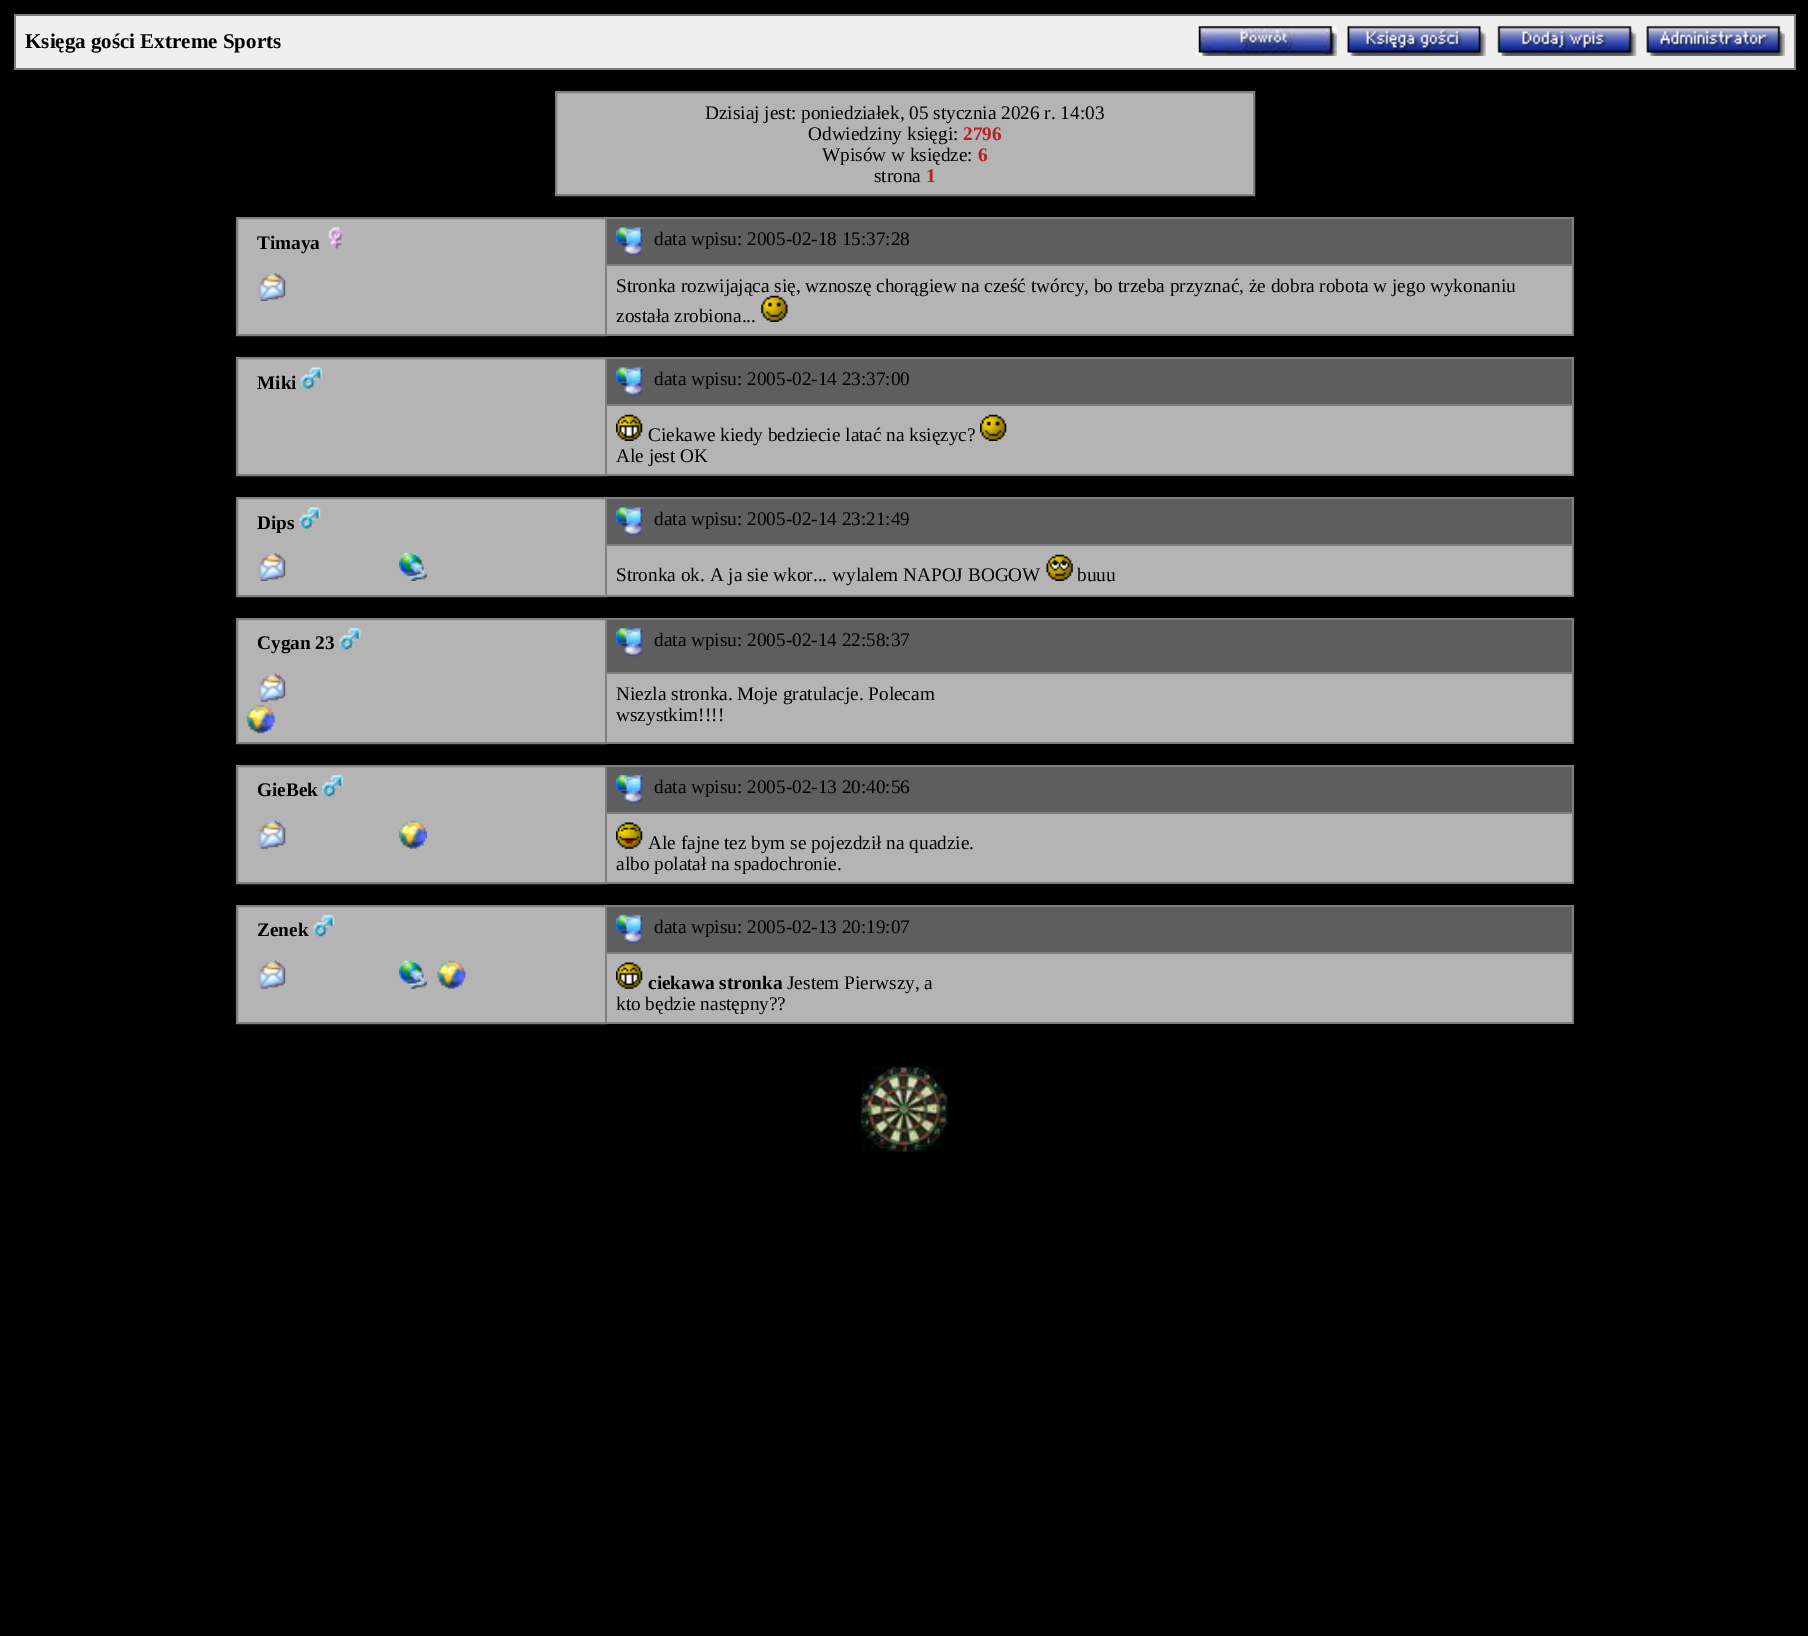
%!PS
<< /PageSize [1808 1636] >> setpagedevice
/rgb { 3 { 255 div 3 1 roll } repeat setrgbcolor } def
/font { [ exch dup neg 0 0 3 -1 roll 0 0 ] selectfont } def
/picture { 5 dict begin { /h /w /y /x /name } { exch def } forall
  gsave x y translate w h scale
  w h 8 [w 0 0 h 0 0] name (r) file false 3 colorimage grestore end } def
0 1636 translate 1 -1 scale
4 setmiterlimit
0 0 0 rgb
0 0 1808 1636 rectfill
[
  [16 16 1778 52 239 239 239]
  [14 14 1782 2 127 127 127]
  [14 68 557 2 127 127 127]
  [14 14 2 56 127 127 127]
  [1794 14 2 56 127 127 127]
  [571 68 1225 2 127 127 127]
] { aload pop rgb rectfill } forall
(img/1.rgb) 1198 26 139 30 picture
(img/2.rgb) 1347 25 139 31 picture
(img/3.rgb) 1497 25 140 31 picture
(img/4.rgb) 1646 25 139 31 picture
180 180 180 rgb
556 92 moveto 1254 92 lineto 1254 195 lineto 556 195 lineto closepath gsave fill grestore
127 127 127 rgb
2 setlinewidth
stroke
180 180 180 rgb
237 218 moveto 606 218 lineto 606 335 lineto 237 335 lineto closepath gsave fill grestore
127 127 127 rgb
stroke
(img/5.rgb) 328 227 16 22 picture
(img/6.rgb) 258 273 28 28 picture
[
  [607 219 965 45 94 94 94]
  [607 217 966 2 127 127 127]
  [1572 217 2 47 127 127 127]
] { aload pop rgb rectfill } forall
(img/7.rgb) 616 227 27 29 picture
[
  [607 266 965 68 180 180 180]
  [607 264 966 2 127 127 127]
  [1572 264 2 72 127 127 127]
  [607 334 966 2 127 127 127]
] { aload pop rgb rectfill } forall
180 180 180 rgb
237 358 moveto 606 358 lineto 606 475 lineto 237 475 lineto closepath gsave fill grestore
127 127 127 rgb
stroke
(img/9.rgb) 301 367 21 22 picture
[
  [607 359 965 45 94 94 94]
  [607 357 966 2 127 127 127]
  [1572 357 2 47 127 127 127]
] { aload pop rgb rectfill } forall
(img/7.rgb) 616 367 27 29 picture
[
  [607 406 965 68 180 180 180]
  [607 404 966 2 127 127 127]
  [1572 404 2 72 127 127 127]
  [607 474 966 2 127 127 127]
] { aload pop rgb rectfill } forall
(img/10.rgb) 616 414 27 27 picture
(img/11.rgb) 980 414 27 27 picture
180 180 180 rgb
237 498 moveto 606 498 lineto 606 596 lineto 237 596 lineto closepath gsave fill grestore
127 127 127 rgb
stroke
(img/12.rgb) 299 507 22 22 picture
(img/6.rgb) 258 553 28 28 picture
(img/13.rgb) 399 553 28 28 picture
[
  [607 499 965 45 94 94 94]
  [607 497 966 2 127 127 127]
  [1572 497 2 47 127 127 127]
] { aload pop rgb rectfill } forall
(img/7.rgb) 616 507 27 29 picture
[
  [607 546 965 49 180 180 180]
  [607 544 966 2 127 127 127]
  [1572 544 2 53 127 127 127]
  [607 595 966 2 127 127 127]
] { aload pop rgb rectfill } forall
(img/14.rgb) 1046 554 27 27 picture
180 180 180 rgb
237 619 moveto 606 619 lineto 606 743 lineto 237 743 lineto closepath gsave fill grestore
127 127 127 rgb
stroke
(img/15.rgb) 339 628 22 22 picture
(img/16.rgb) 258 673 28 29 picture
(img/17.rgb) 246 705 29 29 picture
[
  [607 620 965 52 94 94 94]
  [607 618 966 2 127 127 127]
  [1572 618 2 54 127 127 127]
] { aload pop rgb rectfill } forall
(img/18.rgb) 616 628 27 29 picture
[
  [607 674 965 68 180 180 180]
  [607 672 966 2 127 127 127]
  [1572 672 2 72 127 127 127]
  [607 742 966 2 127 127 127]
] { aload pop rgb rectfill } forall
180 180 180 rgb
237 766 moveto 606 766 lineto 606 883 lineto 237 883 lineto closepath gsave fill grestore
127 127 127 rgb
stroke
(img/19.rgb) 322 775 21 22 picture
(img/16.rgb) 258 820 28 29 picture
(img/20.rgb) 399 820 28 29 picture
[
  [607 767 965 45 94 94 94]
  [607 765 966 2 127 127 127]
  [1572 765 2 47 127 127 127]
] { aload pop rgb rectfill } forall
(img/18.rgb) 616 775 27 29 picture
[
  [607 814 965 68 180 180 180]
  [607 812 966 2 127 127 127]
  [1572 812 2 72 127 127 127]
  [607 882 966 2 127 127 127]
] { aload pop rgb rectfill } forall
(img/21.rgb) 616 822 27 27 picture
180 180 180 rgb
237 906 moveto 606 906 lineto 606 1023 lineto 237 1023 lineto closepath gsave fill grestore
127 127 127 rgb
stroke
(img/22.rgb) 313 915 22 22 picture
(img/16.rgb) 258 960 28 29 picture
(img/23.rgb) 399 960 28 29 picture
(img/24.rgb) 437 960 29 29 picture
[
  [607 907 965 45 94 94 94]
  [607 905 966 2 127 127 127]
  [1572 905 2 47 127 127 127]
] { aload pop rgb rectfill } forall
(img/18.rgb) 616 915 27 29 picture
[
  [607 954 965 68 180 180 180]
  [607 952 966 2 127 127 127]
  [1572 952 2 72 127 127 127]
  [607 1022 966 2 127 127 127]
] { aload pop rgb rectfill } forall
(img/25.rgb) 616 962 27 27 picture
(img/26.rgb) 861 1065 88 88 picture
/LiberationSerif-Bold 21 font
0 0 0 rgb
25 48 moveto (Księga gości Extreme Sports) show
/LiberationSerif-Regular 19.25 font
705 119 moveto (Dzisiaj jest: poniedziałek, 05 stycznia 2026 r. 14:03) show
808 140 moveto (Odwiedziny księgi:) show
/LiberationSerif-Bold 19.25 font
178 34 34 rgb
963 140 moveto (2796) show
/LiberationSerif-Regular 19.25 font
0 0 0 rgb
822 161 moveto (Wpisów w księdze:) show
/LiberationSerif-Bold 19.25 font
178 34 34 rgb
978 161 moveto (6) show
/LiberationSerif-Regular 19.25 font
0 0 0 rgb
874 182 moveto (strona) show
/LiberationSerif-Bold 19.25 font
178 34 34 rgb
926 182 moveto (1) show
0 0 0 rgb
257 249 moveto (Timaya) show
/LiberationSerif-Regular 19.25 font
[
  [(data wpisu: 2005-02-18 15:37:28) 654 245]
  [(Stronka rozwijająca się, wznoszę chorągiew na cześć twórcy, bo trzeba przyznać, że dobra robota w jego wykonaniu) 616 292]
  [(została zrobiona...) 616 322]
] { aload pop moveto show } forall
(img/8.rgb) 761 295 27 27 picture
/LiberationSerif-Bold 19.25 font
257 389 moveto (Miki) show
/LiberationSerif-Regular 19.25 font
[
  [(data wpisu: 2005-02-14 23:37:00) 654 385]
  [(Ciekawe kiedy bedziecie latać na księzyc?) 648 441]
  [(Ale jest OK) 616 462]
] { aload pop moveto show } forall
/LiberationSerif-Bold 19.25 font
257 529 moveto (Dips) show
/LiberationSerif-Regular 19.25 font
[
  [(data wpisu: 2005-02-14 23:21:49) 654 525]
  [(Stronka ok. A ja sie wkor... wylalem NAPOJ BOGOW) 616 581]
  [(buuu) 1077 581]
] { aload pop moveto show } forall
/LiberationSerif-Bold 19.25 font
257 649 moveto (Cygan 23) show
/LiberationSerif-Regular 19.25 font
[
  [(data wpisu: 2005-02-14 22:58:37) 654 646]
  [(Niezla stronka. Moje gratulacje. Polecam) 616 700]
  [(wszystkim!!!!) 616 721]
] { aload pop moveto show } forall
/LiberationSerif-Bold 19.25 font
257 796 moveto (GieBek) show
/LiberationSerif-Regular 19.25 font
[
  [(data wpisu: 2005-02-13 20:40:56) 654 793]
  [(Ale fajne tez bym se pojezdził na quadzie.) 648 849]
  [(albo polatał na spadochronie.) 616 870]
] { aload pop moveto show } forall
/LiberationSerif-Bold 19.25 font
257 936 moveto (Zenek) show
/LiberationSerif-Regular 19.25 font
654 933 moveto (data wpisu: 2005-02-13 20:19:07) show
/LiberationSerif-Bold 19.25 font
648 989 moveto (ciekawa stronka) show
/LiberationSerif-Regular 19.25 font
787 989 moveto (Jestem Pierwszy, a) show
616 1010 moveto (kto będzie następny??) show
showpage
